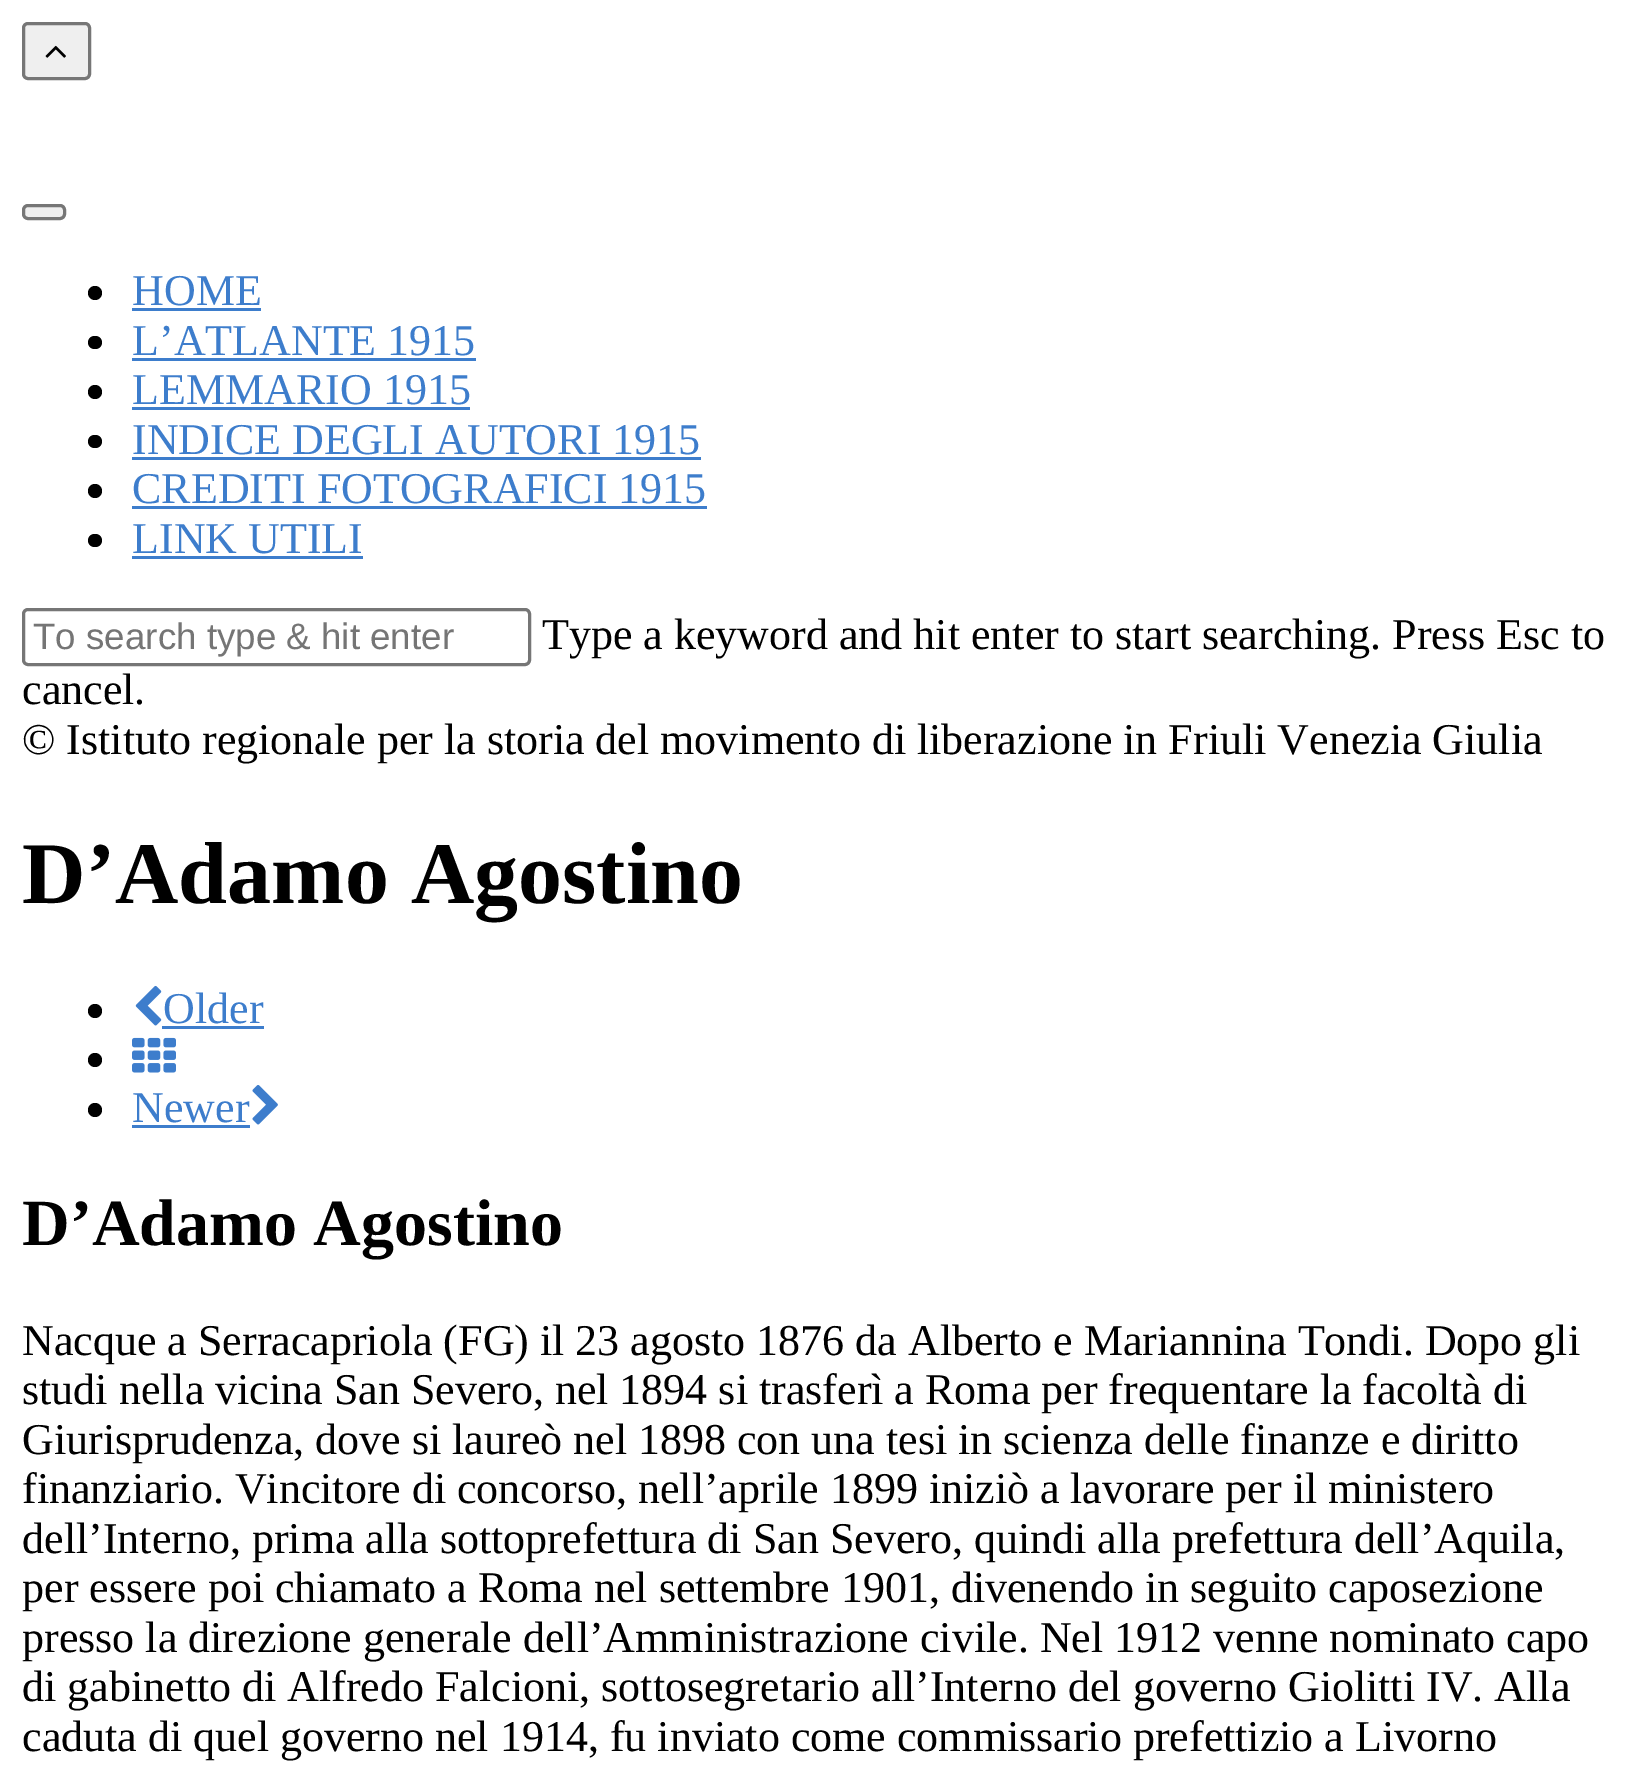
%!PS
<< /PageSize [1629 1767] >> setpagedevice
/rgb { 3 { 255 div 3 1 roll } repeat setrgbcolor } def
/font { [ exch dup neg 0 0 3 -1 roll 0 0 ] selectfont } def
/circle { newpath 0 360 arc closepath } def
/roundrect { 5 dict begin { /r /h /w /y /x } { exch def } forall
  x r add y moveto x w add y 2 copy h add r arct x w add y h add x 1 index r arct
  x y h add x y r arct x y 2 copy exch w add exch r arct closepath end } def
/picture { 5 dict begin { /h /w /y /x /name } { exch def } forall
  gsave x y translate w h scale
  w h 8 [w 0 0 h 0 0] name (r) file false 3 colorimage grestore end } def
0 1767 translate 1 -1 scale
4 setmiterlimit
255 255 255 rgb
0 0 1629 1767 rectfill
239 239 239 rgb
23.5 23.5 66 55 4.5 roundrect gsave fill grestore
118 118 118 rgb
3 setlinewidth
stroke
(img/1.rgb) 45 45 21 13 picture
239 239 239 rgb
23.5 205.5 41 13 4.5 roundrect gsave fill grestore
118 118 118 rgb
stroke
0 0 0 rgb
95 293 7 circle fill
61 125 204 rgb
132 308 129 3 rectfill
0 0 0 rgb
88 336 14 13 6.5 roundrect fill
61 125 204 rgb
132 358 344 3 rectfill
0 0 0 rgb
95 392 7 circle fill
61 125 204 rgb
132 407 338 3 rectfill
0 0 0 rgb
88 435 14 13 6.5 roundrect fill
61 125 204 rgb
132 457 569 3 rectfill
0 0 0 rgb
95 491 7 circle fill
61 125 204 rgb
132 506 575 3 rectfill
0 0 0 rgb
88 534 14 13 6.5 roundrect fill
61 125 204 rgb
132 556 231 3 rectfill
118 118 118 rgb
23.5 609.5 506 55 4.5 roundrect stroke
0 0 0 rgb
95 1011 7 circle fill
(img/2.rgb) 135 985 27 41 picture
61 125 204 rgb
162 1026 102 3 rectfill
0 0 0 rgb
95 1060 7 circle fill
(img/3.rgb) 132 1037 44 36 picture
95 1110 7 circle fill
61 125 204 rgb
132 1125 118 3 rectfill
(img/4.rgb) 252 1085 26 40 picture
/LiberationSerif-Regular 44 font
[
  [(HOME) 132 305]
  [(L’ATLANTE 1915) 132 355]
  [(LEMMARIO 1915) 132 404]
  [(INDICE DEGLI AUTORI 1915) 132 454]
  [(CREDITI FOTOGRAFICI 1915) 132 503]
  [(LINK UTILI) 132 553]
] { aload pop moveto show } forall
/LiberationSans-Regular 36.75 font
117 117 117 rgb
33 649 moveto (To search type & hit enter) show
/LiberationSerif-Regular 44 font
0 0 0 rgb
[
  [(Type a keyword and hit enter to start searching. Press Esc to) 542 649]
  [(cancel.) 22 704]
  [(© Istituto regionale per la storia del movimento di liberazione in Friuli Venezia Giulia) 22 754]
] { aload pop moveto show } forall
/LiberationSerif-Bold 88 font
22 903 moveto (D’Adamo Agostino) show
/LiberationSerif-Regular 44 font
61 125 204 rgb
163 1023 moveto (Older) show
132 1122 moveto (Newer) show
/LiberationSerif-Bold 66 font
0 0 0 rgb
22 1245 moveto (D’Adamo Agostino) show
/LiberationSerif-Regular 44 font
[
  [(Nacque a Serracapriola \(FG\) il 23 agosto 1876 da Alberto e Mariannina Tondi. Dopo gli) 22 1355]
  [(studi nella vicina San Severo, nel 1894 si trasferì a Roma per frequentare la facoltà di) 22 1404]
  [(Giurisprudenza, dove si laureò nel 1898 con una tesi in scienza delle finanze e diritto) 22 1454]
  [(finanziario. Vincitore di concorso, nell’aprile 1899 iniziò a lavorare per il ministero) 22 1503]
  [(dell’Interno, prima alla sottoprefettura di San Severo, quindi alla prefettura dell’Aquila,) 22 1553]
  [(per essere poi chiamato a Roma nel settembre 1901, divenendo in seguito caposezione) 22 1602]
  [(presso la direzione generale dell’Amministrazione civile. Nel 1912 venne nominato capo) 22 1652]
  [(di gabinetto di Alfredo Falcioni, sottosegretario all’Interno del governo Giolitti IV. Alla) 22 1701]
  [(caduta di quel governo nel 1914, fu inviato come commissario prefettizio a Livorno) 22 1751]
] { aload pop moveto show } forall
showpage
